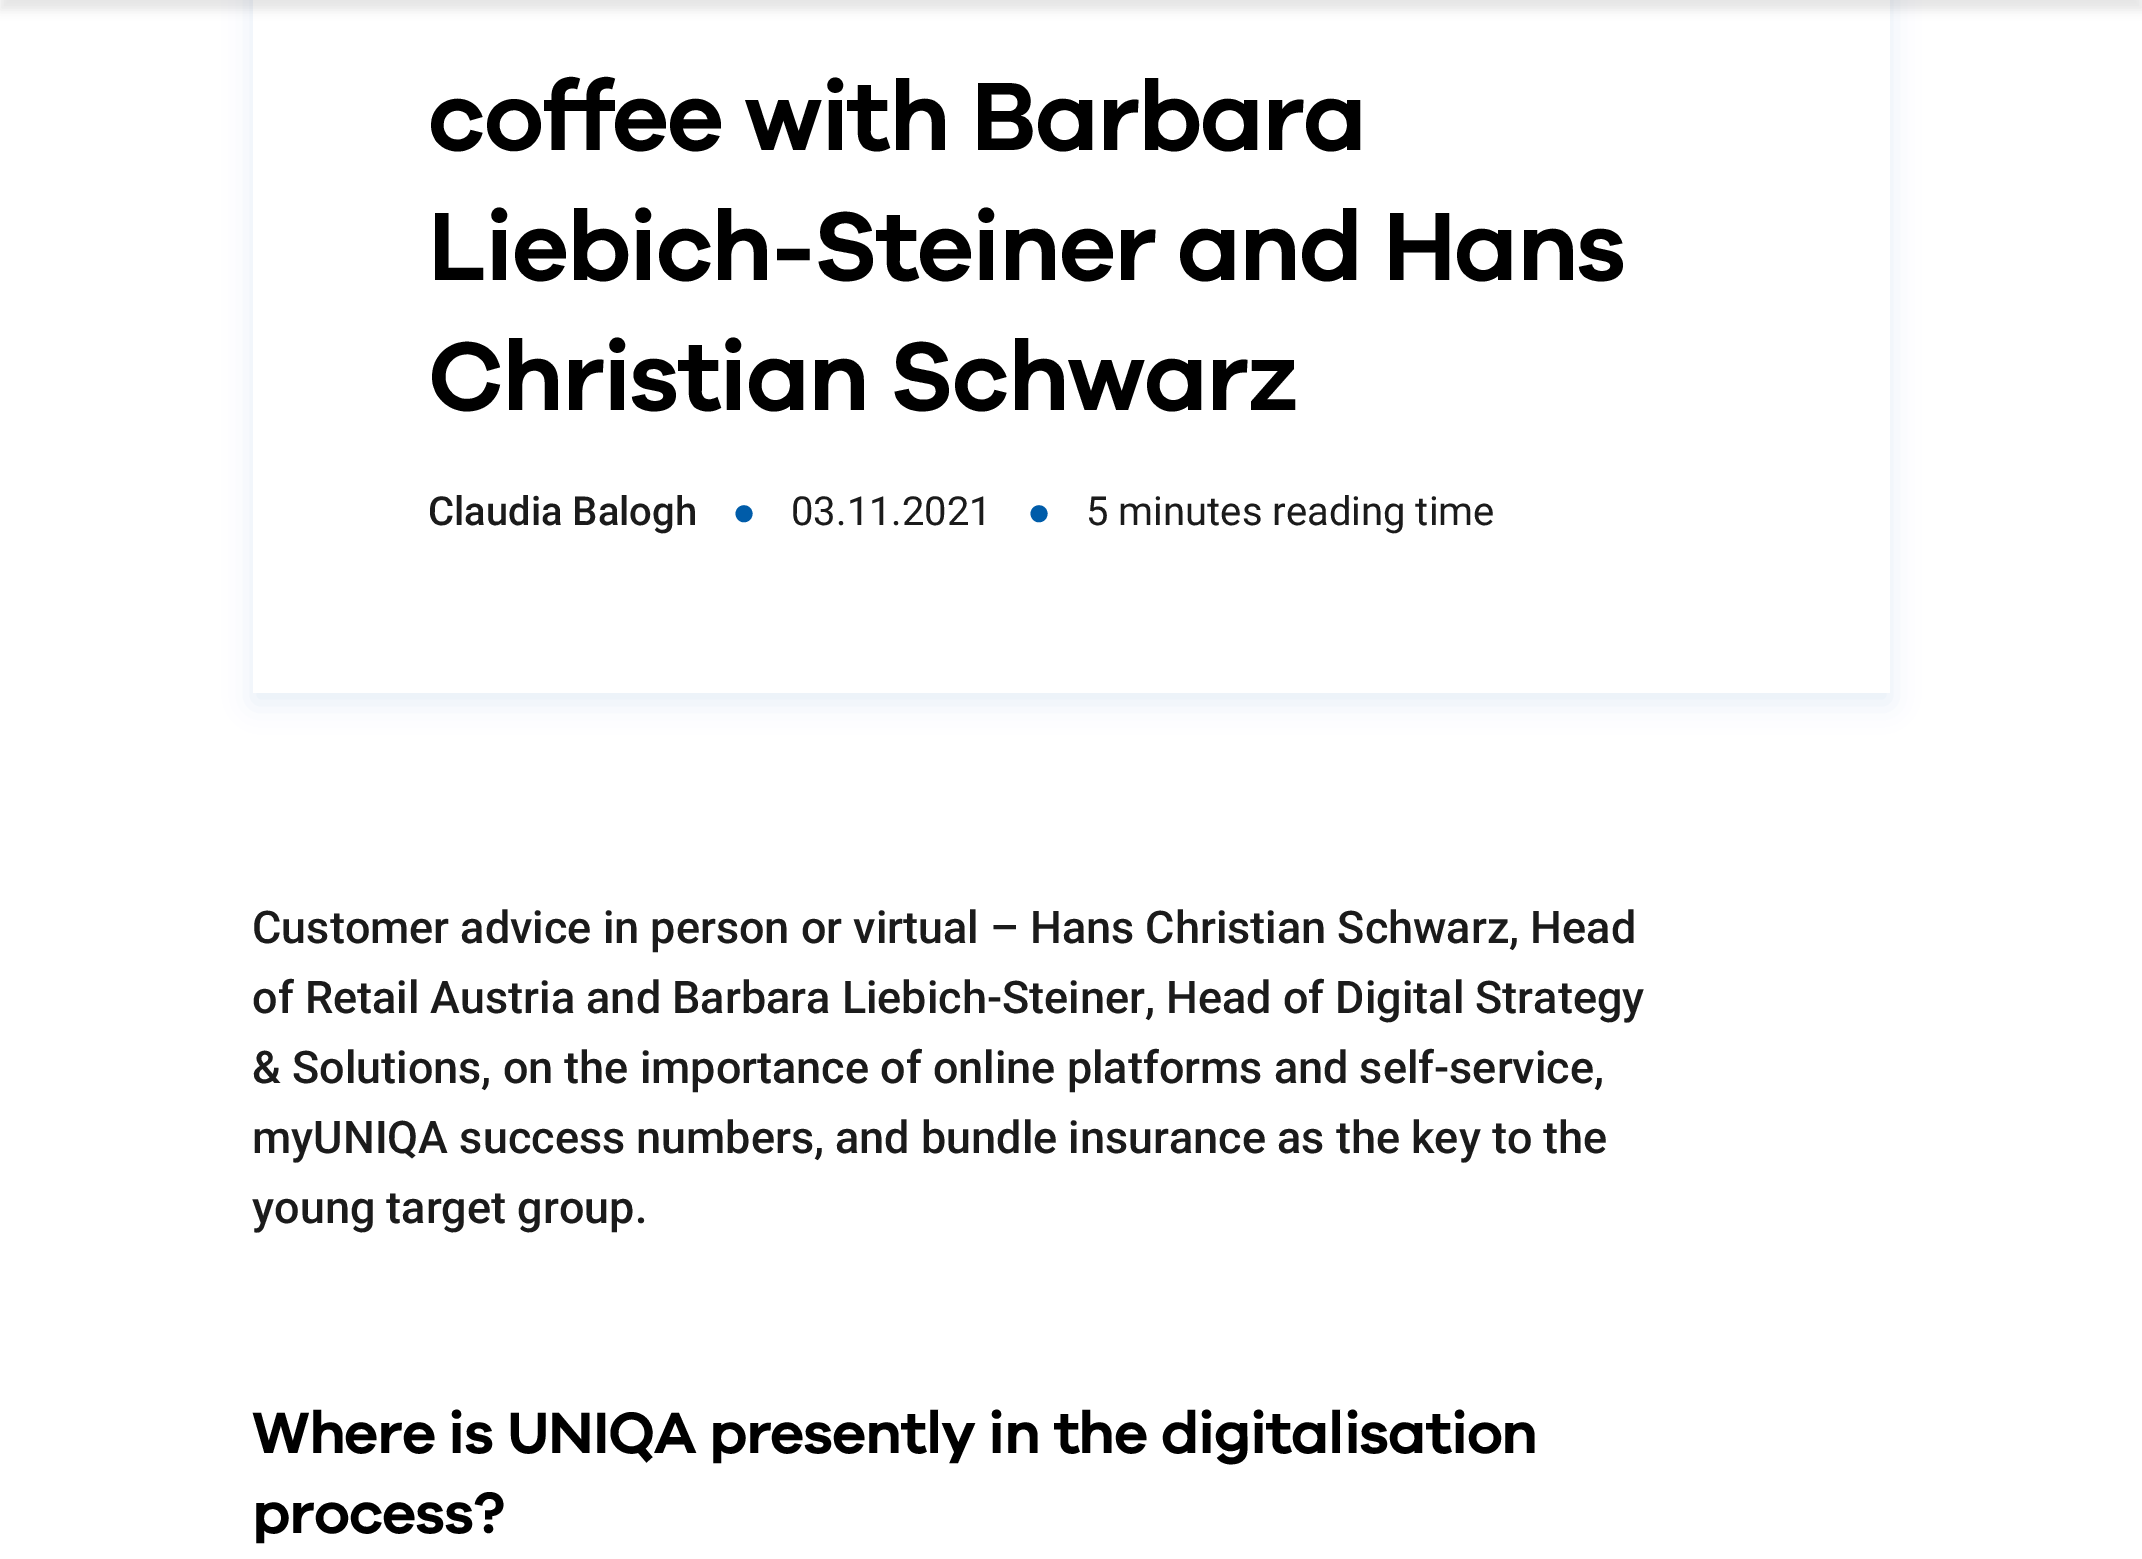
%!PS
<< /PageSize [2142 1559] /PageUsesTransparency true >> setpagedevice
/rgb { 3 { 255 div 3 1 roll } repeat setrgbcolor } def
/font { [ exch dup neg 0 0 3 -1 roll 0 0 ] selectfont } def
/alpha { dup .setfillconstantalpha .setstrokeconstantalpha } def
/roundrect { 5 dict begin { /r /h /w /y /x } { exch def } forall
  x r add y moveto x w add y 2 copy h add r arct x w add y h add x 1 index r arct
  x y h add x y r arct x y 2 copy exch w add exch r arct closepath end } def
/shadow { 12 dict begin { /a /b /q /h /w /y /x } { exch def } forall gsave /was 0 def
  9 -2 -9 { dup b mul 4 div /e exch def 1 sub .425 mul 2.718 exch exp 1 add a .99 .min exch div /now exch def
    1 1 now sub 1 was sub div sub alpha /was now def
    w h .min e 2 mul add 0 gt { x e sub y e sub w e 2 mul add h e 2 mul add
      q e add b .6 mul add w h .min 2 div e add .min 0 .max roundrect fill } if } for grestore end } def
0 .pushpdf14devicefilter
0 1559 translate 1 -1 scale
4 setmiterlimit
255 255 255 rgb
0 0 2142 1559 rectfill
0 92 169 rgb
253 -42 1637 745 0 14 0.1 shadow
255 255 255 rgb
253 0 1637 693 rectfill
0 0 0 rgb
0 -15 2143 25 0 5 0.1 shadow
/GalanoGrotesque-SemiBold 100 font
428 150 moveto -2 0 (coffee with Barbara) ashow
428 280 moveto -2 0 (Liebich-Steiner and Hans) ashow
428 410 moveto -2 0 (Christian Schwarz) ashow
/Roboto-Medium 40 font
27 27 27 rgb
428 525 moveto (Claudia Balogh) show
/LiberationSans-Regular 40 font
0 92 169 rgb
732 525 moveto (●) show
/Roboto-Regular 40 font
27 27 27 rgb
791 525 moveto (03.11.2021) show
/LiberationSans-Regular 40 font
0 92 169 rgb
1027 525 moveto (●) show
/Roboto-Regular 40 font
27 27 27 rgb
1086 525 moveto (5 minutes reading time) show
/Roboto-Medium 45 font
[
  [(Customer advice in person or virtual – Hans Christian Schwarz, Head) 252 943]
  [(of Retail Austria and Barbara Liebich-Steiner, Head of Digital Strategy) 252 1013]
  [(& Solutions, on the importance of online platforms and self-service,) 252 1083]
  [(myUNIQA success numbers, and bundle insurance as the key to the) 252 1153]
  [(young target group.) 252 1223]
] { aload pop moveto show } forall
/GalanoGrotesque-SemiBold 60 font
0 0 0 rgb
252 1453 moveto -1.2 0 (Where is UNIQA presently in the digitalisation) ashow
252 1533 moveto -1.2 0 (process?) ashow
.poppdf14devicefilter showpage
